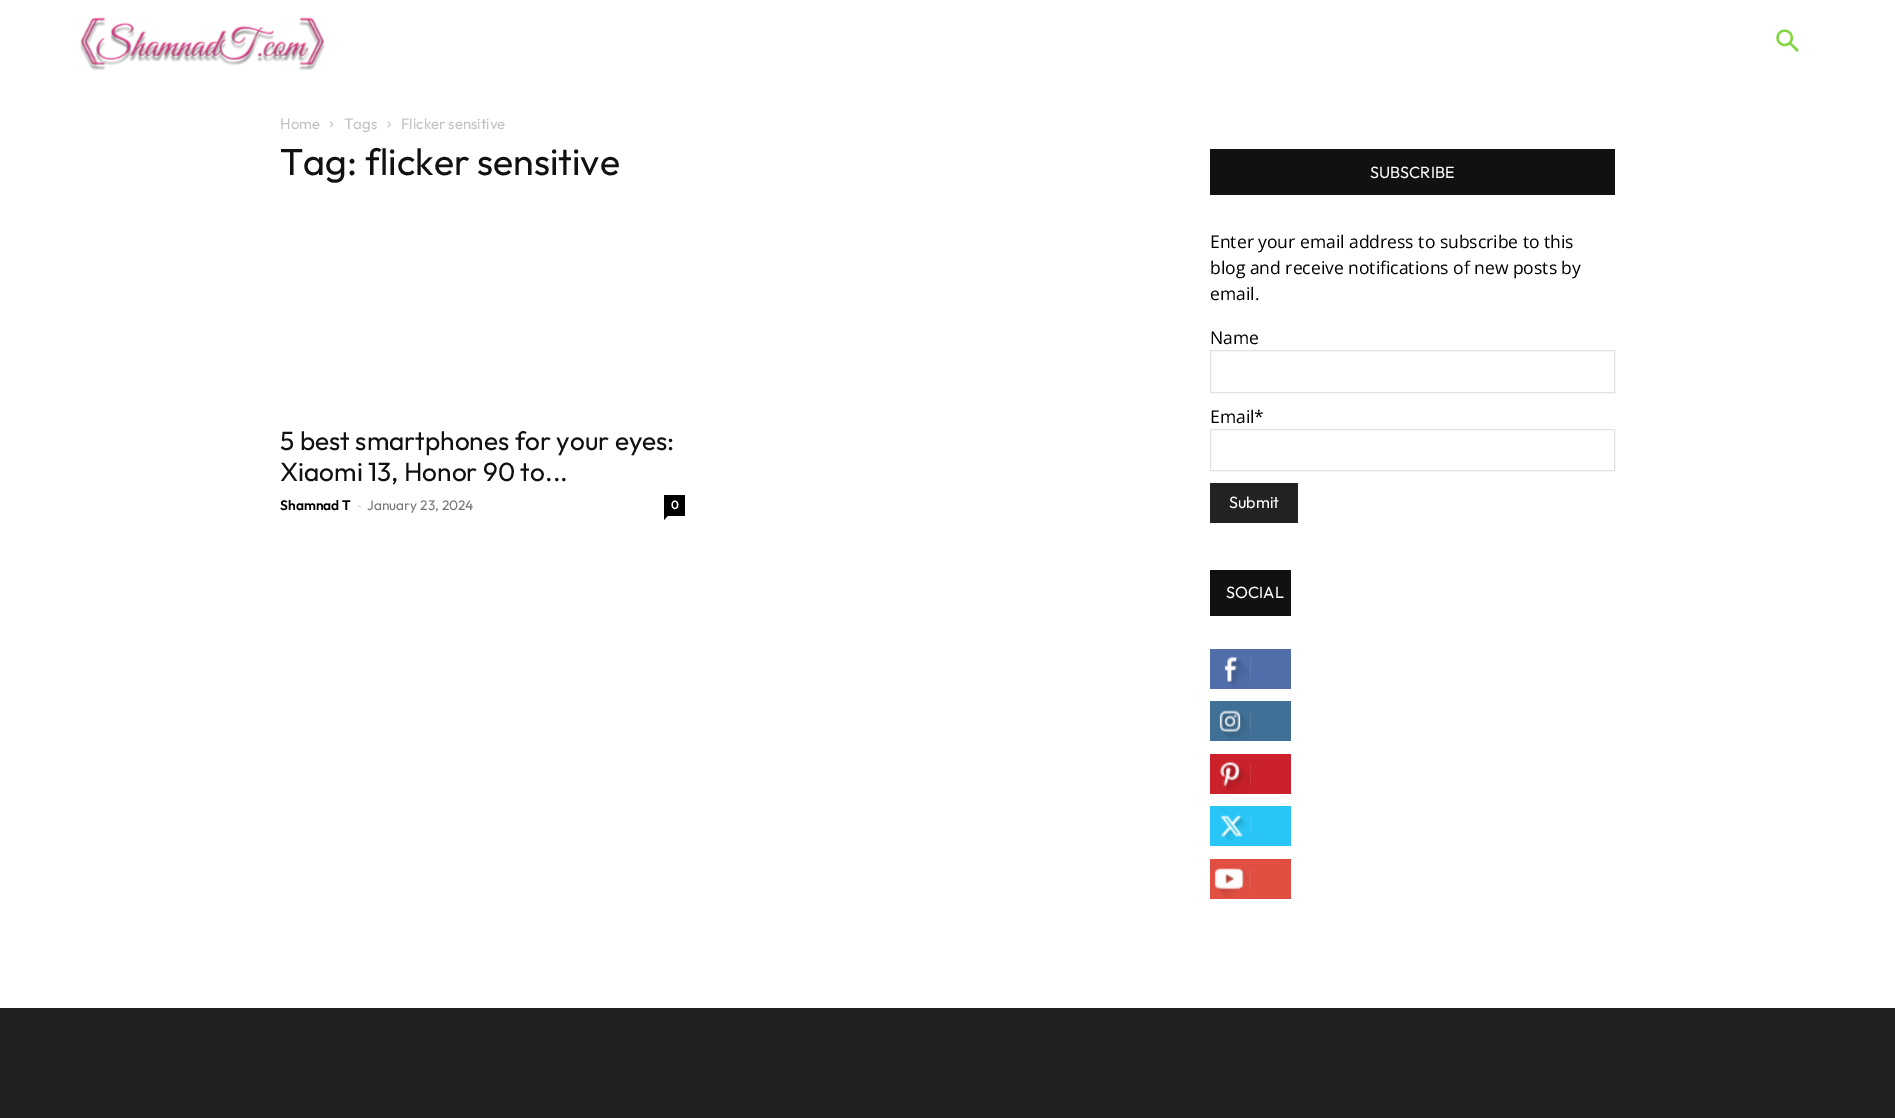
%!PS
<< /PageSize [1895 1118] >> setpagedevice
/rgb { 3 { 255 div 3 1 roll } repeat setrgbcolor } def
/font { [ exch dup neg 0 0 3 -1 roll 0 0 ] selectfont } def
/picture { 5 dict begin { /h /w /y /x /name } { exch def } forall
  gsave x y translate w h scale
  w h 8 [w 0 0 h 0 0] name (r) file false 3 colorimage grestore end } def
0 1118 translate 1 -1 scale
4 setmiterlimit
255 255 255 rgb
0 0 1895 1118 rectfill
(img/1.rgb) 80 17 245 53 picture
(img/2.rgb) 1776 29 23 23 picture
(img/3.rgb) 330 121 4 7 picture
(img/4.rgb) 387 121 4 7 picture
0 0 0 rgb
664 495 21 21 rectfill
664 516 moveto 667.5 516 lineto 664 520 lineto closepath fill
17 17 17 rgb
1210 149 405 46 rectfill
225 225 225 rgb
1210.5 350.5 404 42 rectstroke
1210.5 429.5 404 41 rectstroke
[
  [1210 483 88 40 34 34 34]
  [1210 570 81 46 17 17 17]
  [1210 649 81 40 81 110 171]
] { aload pop rgb rectfill } forall
(img/5.rgb) 1224 656 26 32 picture
98 125 179 rgb
1250 659 1 20 rectfill
65 112 150 rgb
1210 701 81 40 rectfill
(img/6.rgb) 1219 710 30 30 picture
84 126 161 rgb
1250 711 1 20 rectfill
202 33 42 rgb
1210 754 81 40 rectfill
(img/7.rgb) 1219 761 31 33 picture
207 55 63 rgb
1250 764 1 20 rectfill
41 197 246 rgb
1210 806 81 40 rectfill
(img/8.rgb) 1220 815 27 26 picture
62 203 247 rgb
1250 816 1 20 rectfill
225 78 66 rgb
1210 859 81 40 rectfill
(img/9.rgb) 1214 868 34 30 picture
228 96 85 rgb
1250 869 1 20 rectfill
32 32 32 rgb
0 1008 1895 110 rectfill
/Outfit-Regular 15 font
195 195 195 rgb
[
  [(Home) 280 129]
  [(Tags) 344 129]
  [(Flicker sensitive) 401 129]
] { aload pop moveto show } forall
/Outfit-Regular 37.5 font
17 17 17 rgb
280 175 moveto (Tag: flicker sensitive) show
/Outfit-Regular 26.25 font
280 450 moveto (5 best smartphones for your eyes:) show
280 481 moveto (Xiaomi 13, Honor 90 to...) show
/Outfit-SemiBold 13.75 font
0 0 0 rgb
280 510 moveto (Shamnad T) show
/OpenSans-Regular 13.75 font
204 204 204 rgb
357 510 moveto (-) show
/Outfit-Regular 13.75 font
118 118 118 rgb
367 510 moveto (January 23, 2024) show
/Outfit-SemiBold 12 font
255 255 255 rgb
671 509 moveto (0) show
/Outfit-Regular 16.25 font
1370 178 moveto (SUBSCRIBE) show
/OpenSans-Regular 17.5 font
0 0 0 rgb
[
  [(Enter your email address to subscribe to this) 1210 248]
  [(blog and receive notifications of new posts by) 1210 274]
  [(email.) 1210 300]
  [(Name) 1210 344]
  [(Email*) 1210 423]
] { aload pop moveto show } forall
/Outfit-Regular 16.25 font
255 255 255 rgb
1229 508 moveto (Submit) show
1226 598 moveto (SOCIAL) show
showpage
